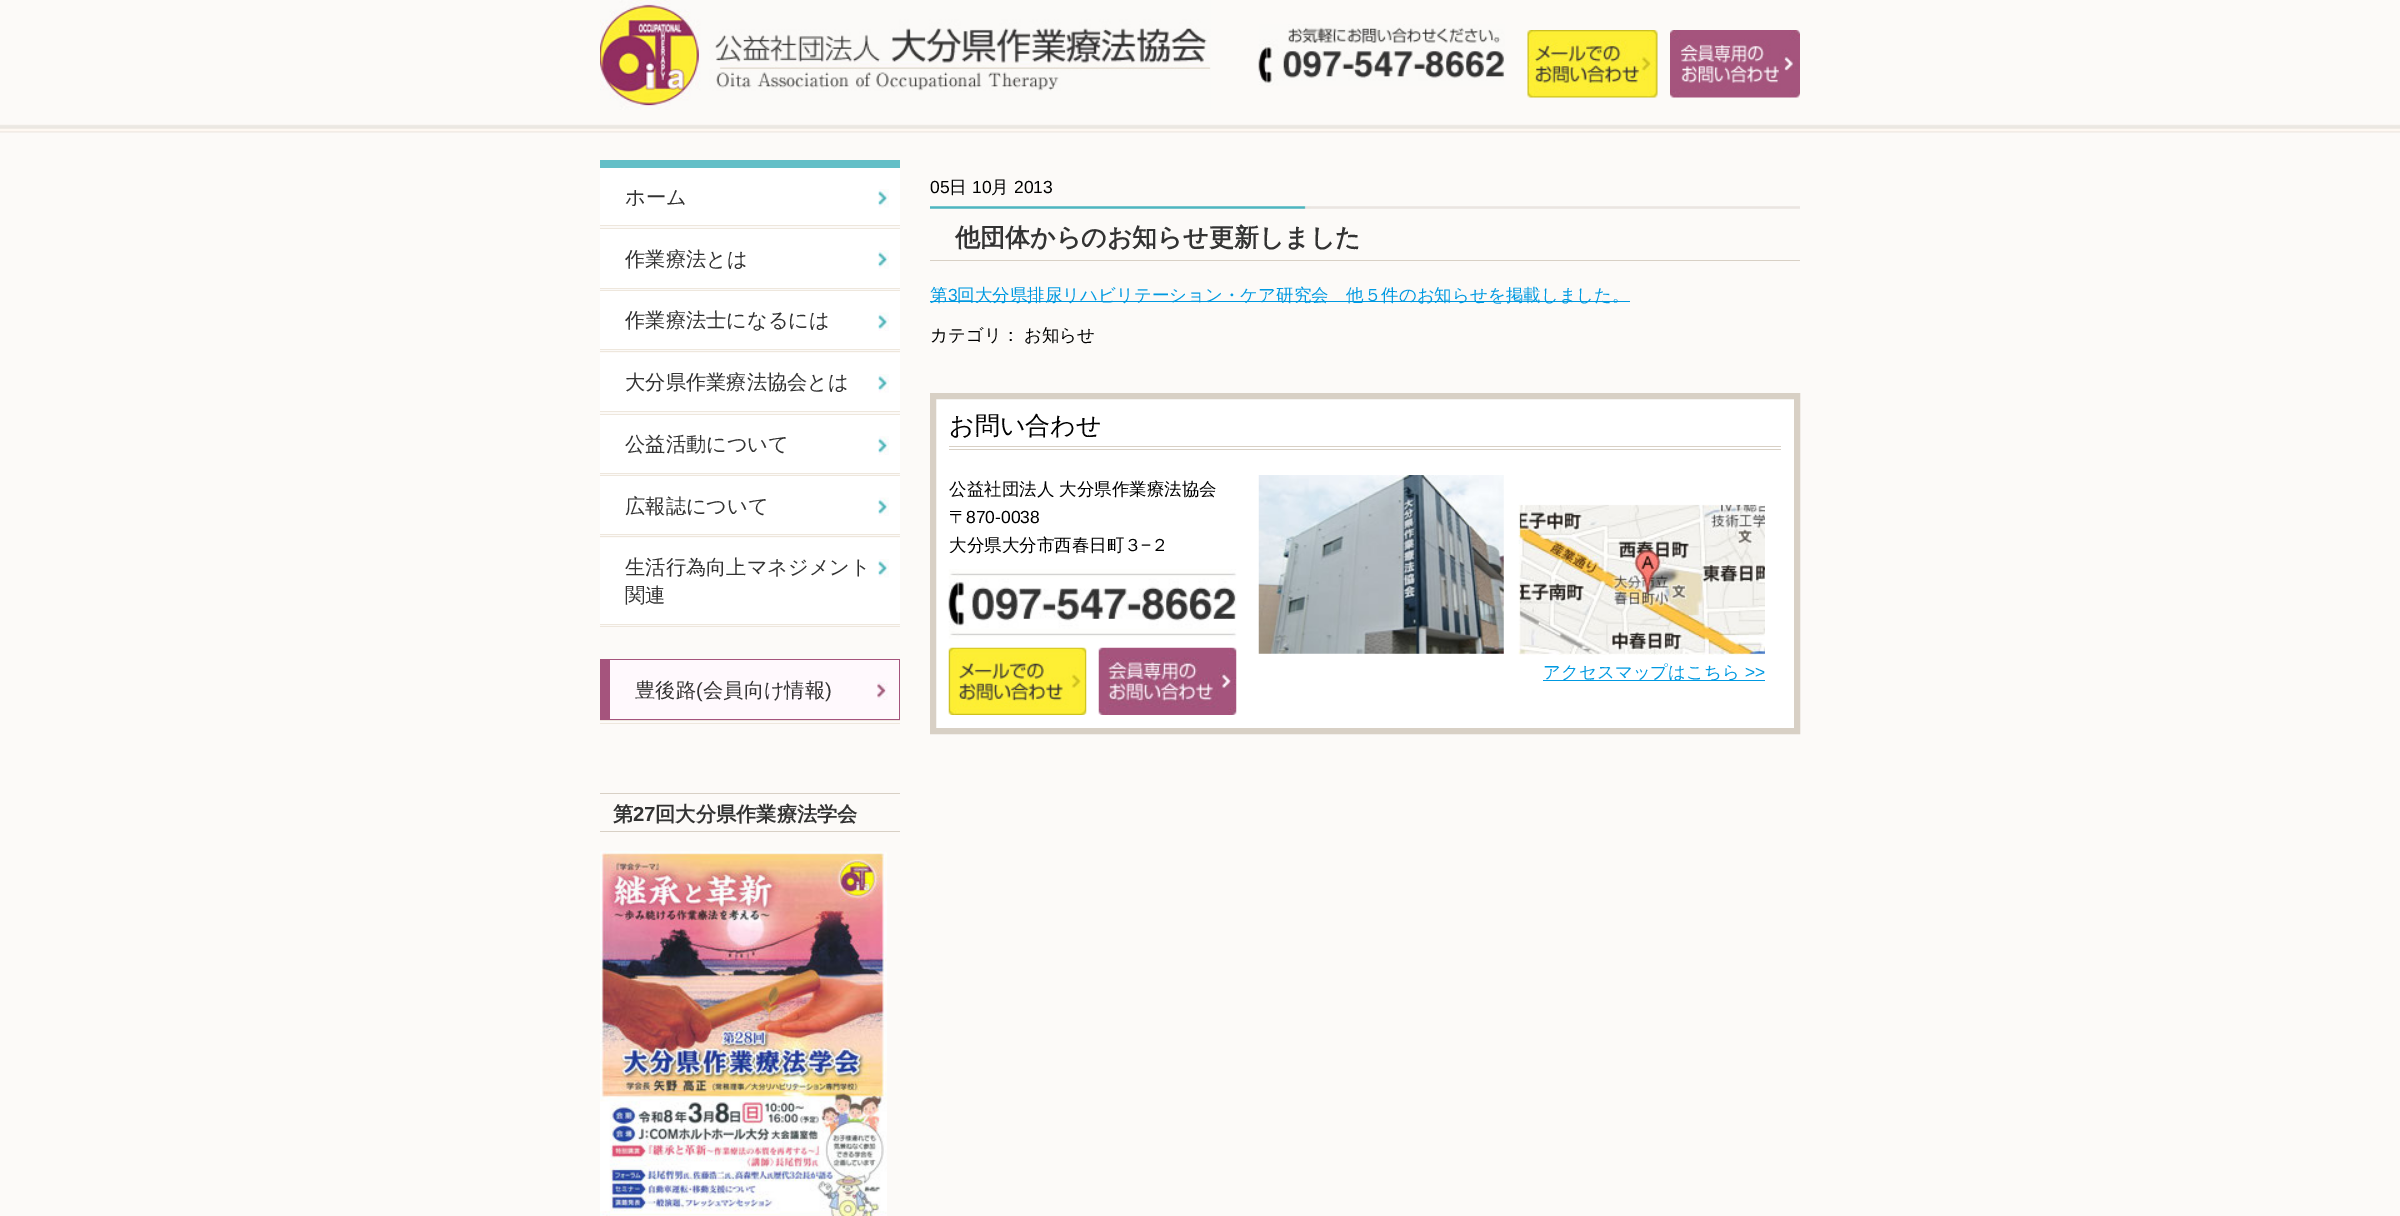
%!PS
<< /PageSize [2400 1216] >> setpagedevice
/rgb { 3 { 255 div 3 1 roll } repeat setrgbcolor } def
/font { [ exch dup neg 0 0 3 -1 roll 0 0 ] selectfont } def
/picture { 5 dict begin { /h /w /y /x /name } { exch def } forall
  gsave x y translate w h scale
  w h 8 [w 0 0 h 0 0] name (r) file false 3 colorimage grestore end } def
0 1216 translate 1 -1 scale
4 setmiterlimit
252 250 248 rgb
0 0 2400 1216 rectfill
(img/1.rgb) 0 124 2400 9 picture
(img/2.rgb) 600 0 611 110 picture
(img/3.rgb) 1258 24 247 62 picture
(img/4.rgb) 1527 30 131 68 picture
(img/5.rgb) 1670 30 130 68 picture
[
  [600 160 300 8 99 191 199]
  [600 225 300 1 238 231 221]
  [600 228 300 1 238 231 221]
  [600 168 300 57 255 255 255]
] { aload pop rgb rectfill } forall
(img/6.rgb) 878 189 11 19 picture
[
  [600 288 300 1 238 231 221]
  [600 290 300 1 238 231 221]
  [600 229 300 59 255 255 255]
] { aload pop rgb rectfill } forall
(img/7.rgb) 878 250 11 19 picture
[
  [600 349 300 1 238 231 221]
  [600 351 300 1 238 231 221]
  [600 291 300 58 255 255 255]
] { aload pop rgb rectfill } forall
(img/8.rgb) 878 312 11 19 picture
[
  [600 411 300 1 238 231 221]
  [600 414 300 1 238 231 221]
  [600 353 300 58 255 255 255]
] { aload pop rgb rectfill } forall
(img/6.rgb) 878 374 11 19 picture
[
  [600 473 300 1 238 231 221]
  [600 475 300 1 238 231 221]
  [600 415 300 58 255 255 255]
] { aload pop rgb rectfill } forall
(img/9.rgb) 878 436 11 19 picture
[
  [600 534 300 1 238 231 221]
  [600 536 300 1 238 231 221]
  [600 476 300 58 255 255 255]
] { aload pop rgb rectfill } forall
(img/8.rgb) 878 497 11 19 picture
[
  [600 624 300 1 238 231 221]
  [600 626 300 1 238 231 221]
  [600 538 300 86 255 255 255]
] { aload pop rgb rectfill } forall
(img/6.rgb) 878 559 11 19 picture
[
  [600 720 300 1 238 231 221]
  [600 723 300 1 238 231 221]
  [610 660 289 59 255 249 253]
] { aload pop rgb rectfill } forall
(img/10.rgb) 877 681 11 19 picture
[
  [610 659 290 1 165 84 125]
  [899 659 1 61 165 84 125]
  [610 719 290 1 165 84 125]
  [600 659 10 61 165 84 125]
  [600 793 300 1 216 208 197]
  [600 831 300 1 216 208 197]
] { aload pop rgb rectfill } forall
(img/11.rgb) 600 851 287 365 picture
(img/12.rgb) 930 206 870 3 picture
930 260 870 1 rectfill
0 153 225 rgb
930 301 700 1 rectfill
255 255 255 rgb
933 396 moveto 1797 396 lineto 1797 731 lineto 933 731 lineto closepath gsave fill grestore
216 208 197 rgb
6 setlinewidth
stroke
949 446 832 1 rectfill
949 449 832 1 rectfill
(img/14.rgb) 948 647 139 68 picture
(img/15.rgb) 1098 647 139 68 picture
(img/13.rgb) 948 569 289 79 picture
(img/16.rgb) 1258 475 246 179 picture
(img/17.rgb) 1518 504 247 151 picture
0 153 225 rgb
1543 680 222 1 rectfill
/WenQuanYiZenHei-Medium 20.25 font
51 51 51 rgb
[
  [(ホーム) 625 204]
  [(作業療法とは) 625 266]
  [(作業療法士になるには) 625 327]
  [(大分県作業療法協会とは) 625 389]
  [(公益活動について) 625 451]
  [(広報誌について) 625 513]
  [(生活行為向上マネジメント) 625 574]
  [(関連) 625 602]
  [(豊後路) 635 697]
] { aload pop moveto show } forall
/LiberationSans-Regular 20.25 font
696 697 moveto (\() show
/WenQuanYiZenHei-Medium 20.25 font
703 697 moveto (会員向け情報) show
/LiberationSans-Regular 20.25 font
825 697 moveto (\)) show
/WenQuanYiZenHei-Bold 20.25 font
613 821 moveto (第) show
/LiberationSans-Bold 20.25 font
633 821 moveto (27) show
/WenQuanYiZenHei-Bold 20.25 font
655 821 moveto (回大分県作業療法学会) show
/LiberationSans-Regular 17.5 font
0 0 0 rgb
930 193 moveto (05) show
/WenQuanYiZenHei-Medium 17.5 font
949 193 moveto (日) show
/LiberationSans-Regular 17.5 font
972 193 moveto (10) show
/WenQuanYiZenHei-Medium 17.5 font
991 193 moveto (月) show
/LiberationSans-Regular 17.5 font
1014 193 moveto (2013) show
/WenQuanYiZenHei-Bold 25 font
51 51 51 rgb
955 246 moveto (他団体からのお知らせ更新しました) show
/WenQuanYiZenHei-Medium 17.5 font
0 153 225 rgb
930 301 moveto (第) show
/LiberationSans-Regular 17.5 font
948 301 moveto (3) show
/WenQuanYiZenHei-Medium 17.5 font
957 301 moveto (回大分県排尿リハビリテーション・ケア研究会　他５件のお知らせを掲載しました。) show
0 0 0 rgb
930 341 moveto (カテゴリ：) show
1024 341 moveto (お知らせ) show
/WenQuanYiZenHei-Medium 25 font
949 434 moveto (お問い合わせ) show
/WenQuanYiZenHei-Medium 17.5 font
949 495 moveto (公益社団法人 大分県作業療法協会) show
949 523 moveto (〒) show
/LiberationSans-Regular 17.5 font
966 523 moveto (870-0038) show
/WenQuanYiZenHei-Medium 17.5 font
949 551 moveto (大分県大分市西春日町３) show
/LiberationSans-Regular 17.5 font
1141 551 moveto (−) show
/WenQuanYiZenHei-Medium 17.5 font
1151 551 moveto (２) show
0 153 225 rgb
1543 678 moveto (アクセスマップはこちら) show
/LiberationSans-Regular 17.5 font
1745 678 moveto (>>) show
showpage
